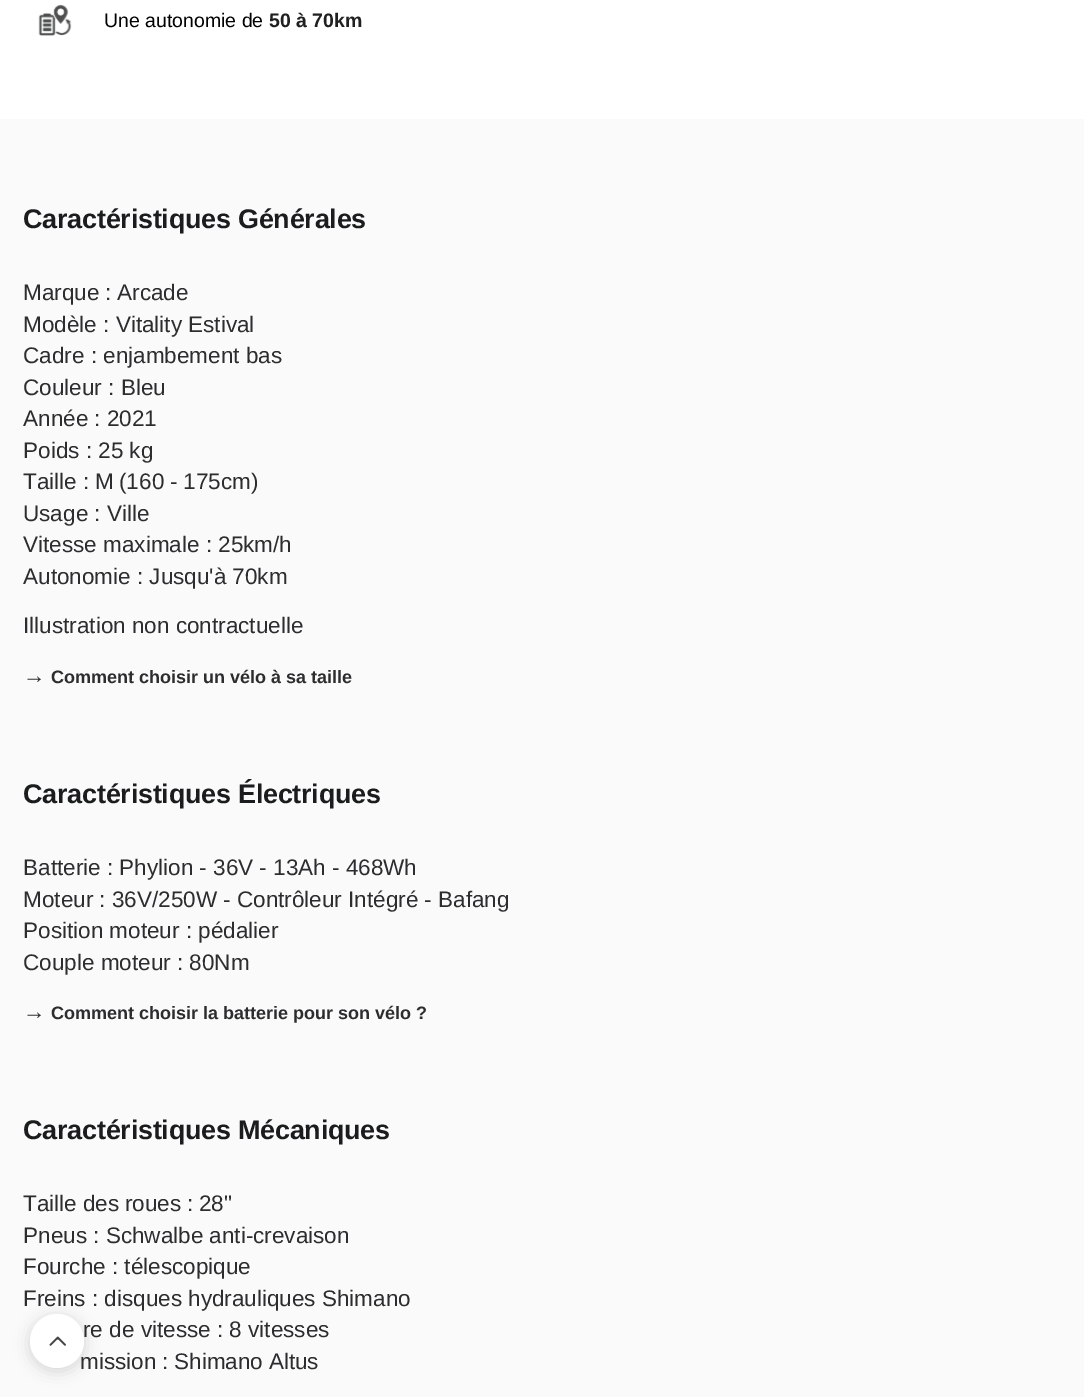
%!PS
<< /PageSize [1084 1397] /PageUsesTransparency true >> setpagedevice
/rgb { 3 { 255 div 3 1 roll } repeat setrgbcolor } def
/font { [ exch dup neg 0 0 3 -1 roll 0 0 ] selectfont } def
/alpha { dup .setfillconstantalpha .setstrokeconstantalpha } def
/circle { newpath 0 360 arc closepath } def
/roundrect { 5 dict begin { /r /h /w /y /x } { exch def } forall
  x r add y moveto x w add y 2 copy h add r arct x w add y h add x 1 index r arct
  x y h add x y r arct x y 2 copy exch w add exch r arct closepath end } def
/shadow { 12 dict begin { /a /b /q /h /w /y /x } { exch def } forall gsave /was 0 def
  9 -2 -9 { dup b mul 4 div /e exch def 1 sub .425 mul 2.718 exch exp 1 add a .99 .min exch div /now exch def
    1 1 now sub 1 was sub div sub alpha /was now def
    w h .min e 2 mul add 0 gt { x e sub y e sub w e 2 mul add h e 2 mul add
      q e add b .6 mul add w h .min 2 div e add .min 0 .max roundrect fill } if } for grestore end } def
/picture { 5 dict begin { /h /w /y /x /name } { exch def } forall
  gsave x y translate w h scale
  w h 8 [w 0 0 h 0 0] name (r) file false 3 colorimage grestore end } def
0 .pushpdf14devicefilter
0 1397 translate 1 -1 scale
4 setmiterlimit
255 255 255 rgb
0 0 1084 1397 rectfill
(img/1.rgb) 38 4 34 32 picture
250 250 250 rgb
0 119 1084 1278 rectfill
0 0 0 rgb
30 1317 54 54 27 7.5 0.15 shadow
/LiberationSans-Regular 19.5 font
104 27 moveto (Une autonomie de) show
/LiberationSans-Bold 19.5 font
32 32 32 rgb
269 27 moveto (50 à 70km) show
/LiberationSans-Bold 27 font
26 28 29 rgb
23 228 moveto -0.25 0 (Caractéristiques Générales) ashow
/LiberationSans-Regular 22.5 font
44 45 46 rgb
23 300 moveto -0.5 0 32 (Marque : Arcade) widthshow
[
  [(Modèle : Vitality Estival) 23 332]
  [(Cadre : enjambement bas) 23 363]
  [(Couleur : Bleu) 23 395]
  [(Année : 2021) 23 426]
  [(Poids : 25 kg) 23 458]
] { aload pop moveto show } forall
23 489 moveto -0.5 0 32 (Taille : M \(160 - 175cm\)) widthshow
[
  [(Usage : Ville) 23 521]
  [(Vitesse maximale : 25km/h) 23 552]
  [(Autonomie : Jusqu'à 70km) 23 584]
  [(Illustration non contractuelle) 23 633]
  [(→) 23 683]
] { aload pop moveto show } forall
/LiberationSans-Bold 18 font
51 683 moveto (Comment choisir un vélo à sa taille) show
/LiberationSans-Bold 27 font
26 28 29 rgb
23 803 moveto -0.25 0 (Caractéristiques Électriques) ashow
/LiberationSans-Regular 22.5 font
44 45 46 rgb
[
  [(Batterie : Phylion - 36V - 13Ah - 468Wh) 23 875]
  [(Moteur : 36V/250W - Contrôleur Intégré - Bafang) 23 907]
  [(Position moteur : pédalier) 23 938]
  [(Couple moteur : 80Nm) 23 970]
  [(→) 23 1019]
] { aload pop moveto show } forall
/LiberationSans-Bold 18 font
51 1019 moveto (Comment choisir la batterie pour son vélo ?) show
/LiberationSans-Bold 27 font
26 28 29 rgb
23 1139 moveto -0.25 0 (Caractéristiques Mécaniques) ashow
/LiberationSans-Regular 22.5 font
44 45 46 rgb
23 1211 moveto -0.5 0 32 (Taille des roues : 28") widthshow
[
  [(Pneus : Schwalbe anti-crevaison) 23 1243]
  [(Fourche : télescopique) 23 1274]
  [(Freins : disques hydrauliques Shimano) 23 1306]
  [(re de vitesse : 8 vitesses) 83 1337]
] { aload pop moveto show } forall
80 1369 moveto -0.5 0 32 (mission : Shimano Altus) widthshow
255 255 255 rgb
57 1341 27 circle fill
(img/2.rgb) 49 1336 17 10 picture
.poppdf14devicefilter showpage
